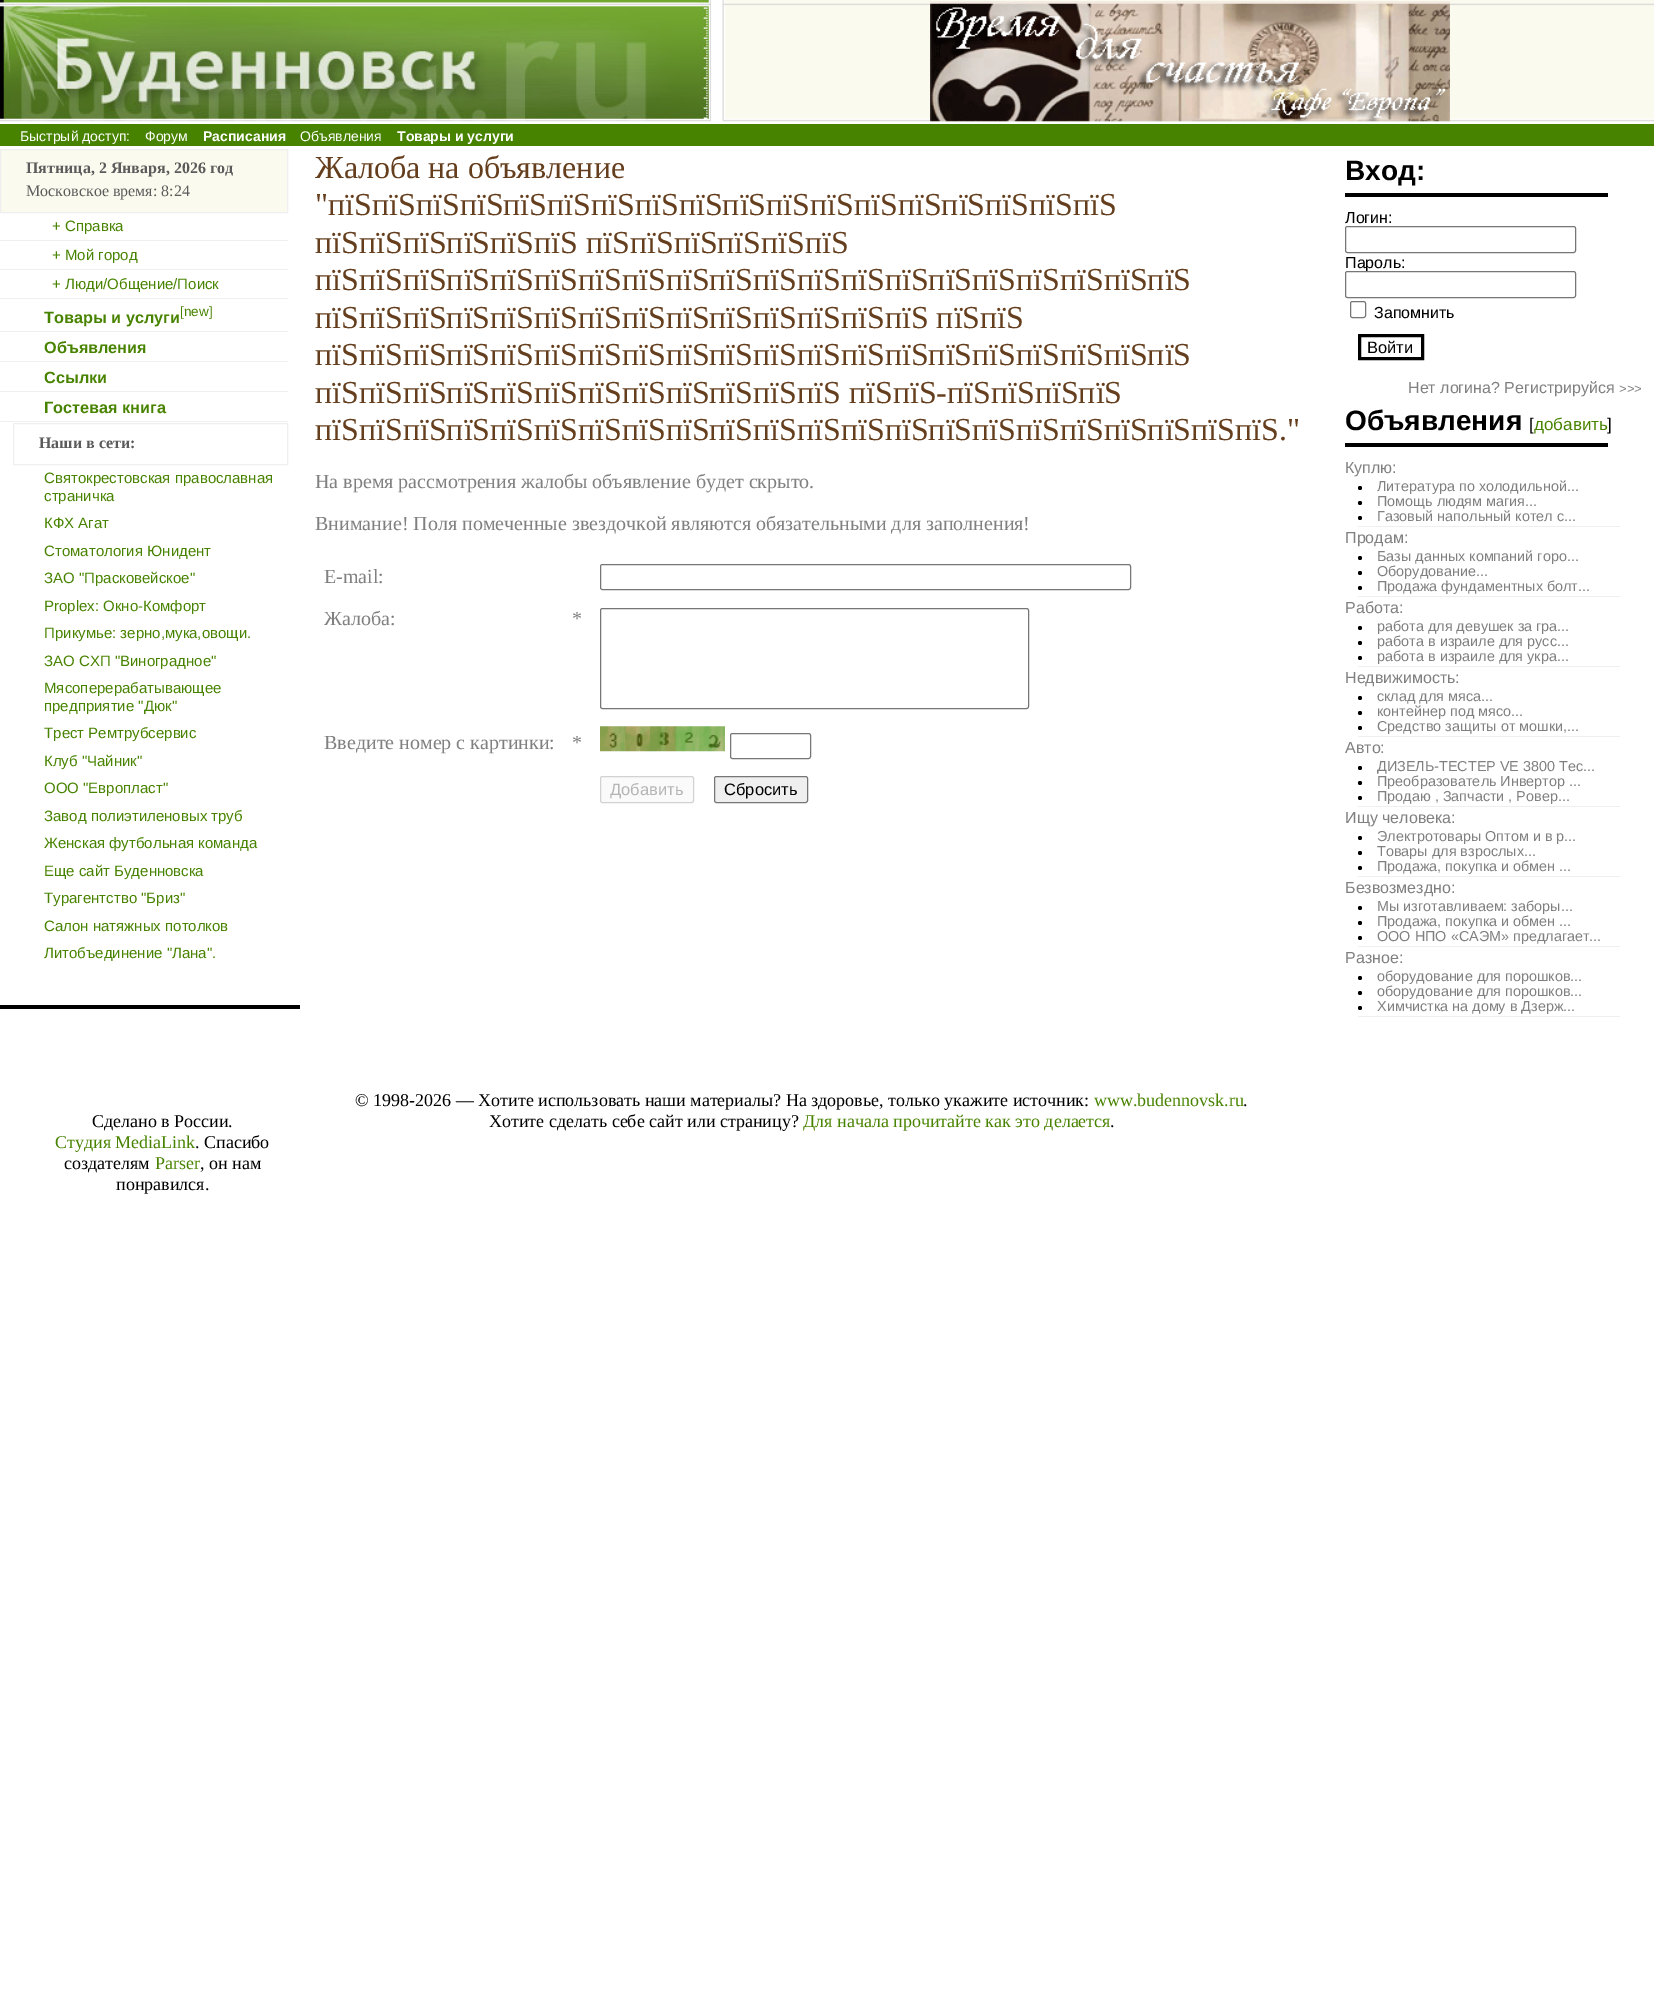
%!PS
<< /PageSize [1654 1998] >> setpagedevice
/rgb { 3 { 255 div 3 1 roll } repeat setrgbcolor } def
/font { [ exch dup neg 0 0 3 -1 roll 0 0 ] selectfont } def
/circle { newpath 0 360 arc closepath } def
/roundrect { 5 dict begin { /r /h /w /y /x } { exch def } forall
  x r add y moveto x w add y 2 copy h add r arct x w add y h add x 1 index r arct
  x y h add x y r arct x y 2 copy exch w add exch r arct closepath end } def
/picture { 5 dict begin { /h /w /y /x /name } { exch def } forall
  gsave x y translate w h scale
  w h 8 [w 0 0 h 0 0] name (r) file false 3 colorimage grestore end } def
0 1998 translate 1 -1 scale
4 setmiterlimit
255 255 255 rgb
0 0 1654 1998 rectfill
(img/1.rgb) 0 0 712 122 picture
(img/2.rgb) 711 0 14 122 picture
(img/3.rgb) 725 0 929 122 picture
(img/4.rgb) 930 1 520 121 picture
72 131 0 rgb
0 124 1654 22 rectfill
250 250 238 rgb
0.5 149.5 moveto 287.5 149.5 lineto 287.5 212.5 lineto 0.5 212.5 lineto closepath gsave fill grestore
239 239 239 rgb
stroke
[
  [0 240 288 1 239 239 239]
  [0 269 288 1 239 239 239]
  [0 298 288 1 239 239 239]
  [0 331 288 1 239 239 239]
  [0 361 288 1 239 239 239]
  [0 391 288 1 239 239 239]
  [0 421 288 1 239 239 239]
] { aload pop rgb rectfill } forall
13.5 423.5 274 41 rectstroke
0 0 0 rgb
0 1005 300 4 rectfill
118 118 118 rgb
600.5 564.5 530 25 2 roundrect stroke
600.5 608.5 428 100 2 roundrect stroke
(img/5.rgb) 600 726 125 26 picture
730.5 733.5 80 25 2 roundrect stroke
250 250 250 rgb
600.5 776.5 93 26 2 roundrect gsave fill grestore
210 210 210 rgb
stroke
239 239 239 rgb
714.5 776.5 93 26 2 roundrect gsave fill grestore
118 118 118 rgb
stroke
0 0 0 rgb
1345 193 263 4 rectfill
118 118 118 rgb
1345.5 226.5 230 26 2 roundrect stroke
1350.5 301.5 15 16 2 roundrect stroke
0 0 0 rgb
3 setlinewidth
1359.5 335.5 63 23 rectstroke
1345 443 263 4 rectfill
1360 488 2 circle fill
1360 503 2 circle fill
1360 518 2 circle fill
239 239 239 rgb
1358 526 262 1 rectfill
0 0 0 rgb
1360 558 2 circle fill
1360 573 2 circle fill
1360 588 2 circle fill
239 239 239 rgb
1358 596 262 1 rectfill
0 0 0 rgb
1360 628 2 circle fill
1360 643 2 circle fill
1360 658 2 circle fill
239 239 239 rgb
1358 666 262 1 rectfill
0 0 0 rgb
1360 698 2 circle fill
1360 713 2 circle fill
1360 728 2 circle fill
239 239 239 rgb
1358 736 262 1 rectfill
0 0 0 rgb
1360 768 2 circle fill
1360 783 2 circle fill
1360 798 2 circle fill
239 239 239 rgb
1358 806 262 1 rectfill
0 0 0 rgb
1360 838 2 circle fill
1360 853 2 circle fill
1360 868 2 circle fill
239 239 239 rgb
1358 876 262 1 rectfill
0 0 0 rgb
1360 908 2 circle fill
1360 923 2 circle fill
1360 938 2 circle fill
239 239 239 rgb
1358 946 262 1 rectfill
0 0 0 rgb
1360 978 2 circle fill
1360 993 2 circle fill
1360 1008 2 circle fill
239 239 239 rgb
1358 1016 262 1 rectfill
/LiberationSans-Regular 14 font
255 255 255 rgb
20 141 moveto (Быстрый доступ:) show
145 141 moveto (Форум) show
/LiberationSans-Bold 14 font
203 141 moveto (Расписания) show
/LiberationSans-Regular 14 font
300 141 moveto (Объявления) show
/LiberationSans-Bold 14 font
397 141 moveto (Товары и услуги) show
/LiberationSerif-Bold 16 font
91 91 91 rgb
26 173 moveto (Пятница, 2 Января, 2026 год) show
/LiberationSerif-Regular 16 font
26 196 moveto (Московское время: 8:24) show
/LiberationSans-Regular 15 font
72 131 0 rgb
[
  [(+ Справка) 52 231]
  [(+ Мой город) 52 260]
  [(+ Люди/Общение/Поиск) 52 289]
] { aload pop moveto show } forall
/LiberationSans-Bold 16.25 font
44 323 moveto (Товары и услуги) show
/LiberationSans-Regular 13.5 font
180 316 moveto ([new]) show
/LiberationSans-Bold 16.25 font
[
  [(Объявления) 44 353]
  [(Ссылки) 44 383]
  [(Гостевая книга) 44 413]
] { aload pop moveto show } forall
/LiberationSerif-Bold 16 font
91 91 91 rgb
39 448 moveto (Наши в сети:) show
/LiberationSans-Regular 15 font
72 131 0 rgb
[
  [(Святокрестовская православная) 44 483]
  [(страничка) 44 501]
  [(КФХ Агат) 44 528]
  [(Стоматология Юнидент) 44 556]
  [(ЗАО "Прасковейское") 44 583]
  [(Proplex: Окно-Комфорт) 44 611]
  [(Прикумье: зерно,мука,овощи.) 44 638]
  [(ЗАО СХП "Виноградное") 44 666]
  [(Мясоперерабатывающее) 44 693]
  [(предприятие "Дюк") 44 711]
  [(Трест Ремтрубсервис) 44 738]
  [(Клуб "Чайник") 44 766]
  [(ООО "Европласт") 44 793]
  [(Завод полиэтиленовых труб) 44 821]
  [(Женская футбольная команда) 44 848]
  [(Еще сайт Буденновска) 44 876]
  [(Турагентство "Бриз") 44 903]
  [(Салон натяжных потолков) 44 931]
  [(Литобъединение "Лана".) 44 958]
] { aload pop moveto show } forall
/LiberationSerif-Regular 32 font
100 62 29 rgb
[
  [(Жалоба на объявление) 315 178]
  [("пїЅпїЅпїЅпїЅпїЅпїЅпїЅпїЅпїЅпїЅпїЅпїЅпїЅпїЅпїЅпїЅпїЅпїЅ) 315 215]
  [(пїЅпїЅпїЅпїЅпїЅпїЅ пїЅпїЅпїЅпїЅпїЅпїЅ) 315 253]
  [(пїЅпїЅпїЅпїЅпїЅпїЅпїЅпїЅпїЅпїЅпїЅпїЅпїЅпїЅпїЅпїЅпїЅпїЅпїЅпїЅ) 315 290]
  [(пїЅпїЅпїЅпїЅпїЅпїЅпїЅпїЅпїЅпїЅпїЅпїЅпїЅпїЅ пїЅпїЅ) 315 328]
  [(пїЅпїЅпїЅпїЅпїЅпїЅпїЅпїЅпїЅпїЅпїЅпїЅпїЅпїЅпїЅпїЅпїЅпїЅпїЅпїЅ) 315 365]
  [(пїЅпїЅпїЅпїЅпїЅпїЅпїЅпїЅпїЅпїЅпїЅпїЅ пїЅпїЅ-пїЅпїЅпїЅпїЅ) 315 403]
  [(пїЅпїЅпїЅпїЅпїЅпїЅпїЅпїЅпїЅпїЅпїЅпїЅпїЅпїЅпїЅпїЅпїЅпїЅпїЅпїЅпїЅпїЅ.") 315 440]
] { aload pop moveto show } forall
/LiberationSerif-Regular 20 font
128 128 128 rgb
[
  [(На время рассмотрения жалобы объявление будет скрыто.) 315 488]
  [(Внимание! Поля помеченные звездочкой являются обязательными для заполнения!) 315 530]
  [(E-mail:) 324 583]
  [(Жалоба:) 324 625]
  [(*) 572 625]
  [(Введите номер с картинки:) 324 749]
  [(*) 572 749]
] { aload pop moveto show } forall
/LiberationSans-Regular 16.5 font
180 180 180 rgb
610 795 moveto (Добавить) show
0 0 0 rgb
724 795 moveto (Сбросить) show
/LiberationSans-Bold 28 font
1345 180 moveto (Вход:) show
/LiberationSans-Regular 16 font
1345 223 moveto (Логин:) show
1345 268 moveto (Пароль:) show
255 255 255 rgb
1345.5 271.5 230 26 2 roundrect gsave fill grestore
118 118 118 rgb
1 setlinewidth
stroke
0 0 0 rgb
1374 318 moveto (Запомнить) show
/LiberationSans-Regular 16.5 font
1367 353 moveto (Войти) show
/LiberationSans-Regular 16 font
128 128 128 rgb
1408 393 moveto (Нет логина? Регистрируйся) show
/LiberationSans-Regular 13 font
1619 393 moveto (>>>) show
/LiberationSans-Bold 28 font
0 0 0 rgb
1345 430 moveto (Объявления) show
/LiberationSans-Regular 17 font
1529 430 moveto ([) show
72 131 0 rgb
1534 430 moveto (добавить) show
0 0 0 rgb
1607 430 moveto (]) show
/LiberationSans-Regular 16 font
128 128 128 rgb
1345 473 moveto (Куплю:) show
/LiberationSans-Regular 14.4 font
[
  [(Литература по холодильной...) 1377 491]
  [(Помощь людям магия...) 1377 506]
  [(Газовый напольный котел с...) 1377 521]
] { aload pop moveto show } forall
/LiberationSans-Regular 16 font
1345 543 moveto (Продам:) show
/LiberationSans-Regular 14.4 font
[
  [(Базы данных компаний горо...) 1377 561]
  [(Оборудование...) 1377 576]
  [(Продажа фундаментных болт...) 1377 591]
] { aload pop moveto show } forall
/LiberationSans-Regular 16 font
1345 613 moveto (Работа:) show
/LiberationSans-Regular 14.4 font
[
  [(работа для девушек за гра...) 1377 631]
  [(работа в израиле для русс...) 1377 646]
  [(работа в израиле для укра...) 1377 661]
] { aload pop moveto show } forall
/LiberationSans-Regular 16 font
1345 683 moveto (Недвижимость:) show
/LiberationSans-Regular 14.4 font
[
  [(склад для мяса...) 1377 701]
  [(контейнер под мясо...) 1377 716]
  [(Средство защиты от мошки,...) 1377 731]
] { aload pop moveto show } forall
/LiberationSans-Regular 16 font
1345 753 moveto (Авто:) show
/LiberationSans-Regular 14.4 font
[
  [(ДИЗЕЛЬ-ТЕСТЕР VE 3800 Тес...) 1377 771]
  [(Преобразователь Инвертор ...) 1377 786]
  [(Продаю , Запчасти , Ровер...) 1377 801]
] { aload pop moveto show } forall
/LiberationSans-Regular 16 font
1345 823 moveto (Ищу человека:) show
/LiberationSans-Regular 14.4 font
[
  [(Электротовары Оптом и в р...) 1377 841]
  [(Товары для взрослых...) 1377 856]
  [(Продажа, покупка и обмен ...) 1377 871]
] { aload pop moveto show } forall
/LiberationSans-Regular 16 font
1345 893 moveto (Безвозмездно:) show
/LiberationSans-Regular 14.4 font
[
  [(Мы изготавливаем: заборы...) 1377 911]
  [(Продажа, покупка и обмен ...) 1377 926]
  [(ООО НПО «САЭМ» предлагает...) 1377 941]
] { aload pop moveto show } forall
/LiberationSans-Regular 16 font
1345 963 moveto (Разное:) show
/LiberationSans-Regular 14.4 font
[
  [(оборудование для порошков...) 1377 981]
  [(оборудование для порошков...) 1377 996]
  [(Химчистка на дому в Дзерж...) 1377 1011]
] { aload pop moveto show } forall
/LiberationSerif-Regular 18 font
0 0 0 rgb
92 1127 moveto (Сделано в России.) show
72 131 0 rgb
55 1148 moveto (Студия MediaLink) show
0 0 0 rgb
195 1148 moveto (. Спасибо) show
64 1169 moveto (создателям) show
72 131 0 rgb
155 1169 moveto (Parser) show
0 0 0 rgb
[
  [(, он нам) 200 1169]
  [(понравился.) 116 1190]
  [(© 1998-2026 — Хотите использовать наши материалы? На здоровье, только укажите источник:) 355 1106]
] { aload pop moveto show } forall
72 131 0 rgb
1094 1106 moveto (www.budennovsk.ru) show
0 0 0 rgb
1243 1106 moveto (.) show
489 1127 moveto (Хотите сделать себе сайт или страницу?) show
72 131 0 rgb
803 1127 moveto (Для начала прочитайте как это делается) show
0 0 0 rgb
1110 1127 moveto (.) show
showpage
